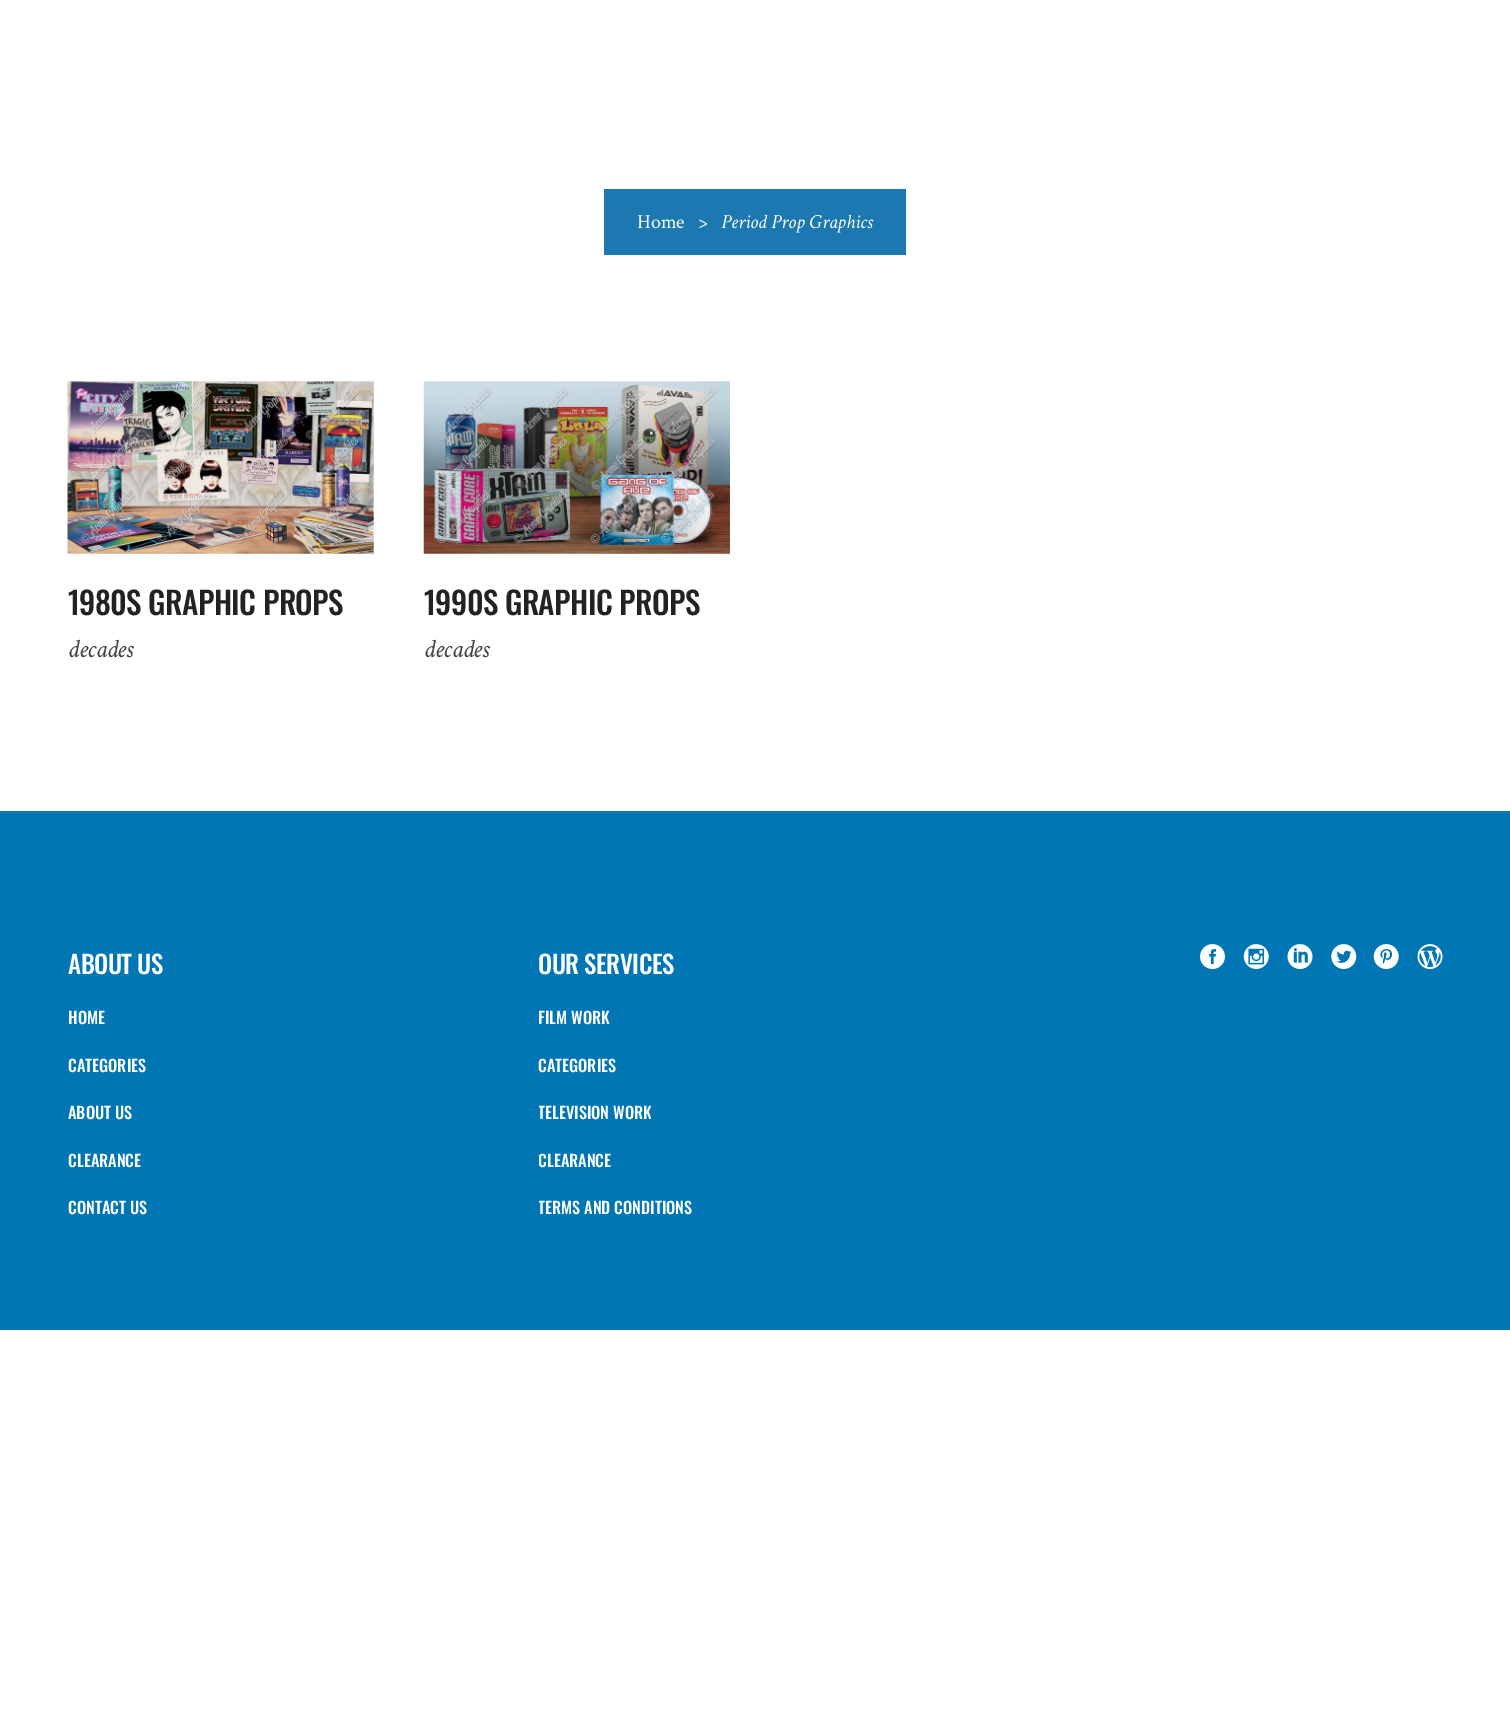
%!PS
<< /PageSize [1510 1715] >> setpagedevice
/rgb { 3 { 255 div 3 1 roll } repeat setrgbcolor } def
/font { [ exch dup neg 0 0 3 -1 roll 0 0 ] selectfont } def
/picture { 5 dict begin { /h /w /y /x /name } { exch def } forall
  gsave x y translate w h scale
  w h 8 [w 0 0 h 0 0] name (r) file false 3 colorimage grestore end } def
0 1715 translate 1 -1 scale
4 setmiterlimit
255 255 255 rgb
0 0 1510 1715 rectfill
27 120 177 rgb
604 189 302 66 rectfill
(img/1.rgb) 67 381 307 173 picture
(img/2.rgb) 423 381 307 173 picture
0 118 180 rgb
0 811 1510 519 rectfill
(img/3.rgb) 1200 944 25 26 picture
(img/4.rgb) 1243 944 26 26 picture
(img/5.rgb) 1287 944 26 25 picture
(img/6.rgb) 1331 944 26 26 picture
(img/7.rgb) 1373 944 26 26 picture
(img/8.rgb) 1417 944 26 25 picture
/CrimsonText-Regular 20 font
255 255 255 rgb
637 228 moveto (Home) show
698 228 moveto (>) show
/CrimsonText-Italic 20 font
721 228 moveto (Period Prop Graphics) show
/Oswald-Medium 31.25 font
34 34 34 rgb
68 615 moveto -0.6 0 (1980S GRAPHIC PROPS) ashow
/CrimsonText-Italic 26 font
66 66 66 rgb
68 657 moveto -0.5 0 (decades) ashow
/Oswald-Medium 31.25 font
34 34 34 rgb
424 615 moveto -0.6 0 (1990S GRAPHIC PROPS) ashow
/CrimsonText-Italic 26 font
66 66 66 rgb
424 657 moveto -0.5 0 (decades) ashow
/Oswald-Medium 25 font
255 255 255 rgb
68 974 moveto -0.5 0 (ABOUT US) ashow
/Oswald-Medium 16.25 font
[
  [(HOME) 68 1024]
  [(CATEGORIES) 68 1072]
  [(ABOUT US) 68 1119]
  [(CLEARANCE) 68 1167]
  [(CONTACT US) 68 1214]
] { aload pop moveto show } forall
/Oswald-Medium 25 font
538 974 moveto -0.5 0 (OUR SERVICES) ashow
/Oswald-Medium 16.25 font
538 1024 moveto (FILM WORK) show
538 1072 moveto (CATEGORIES) show
gsave
539 1099 112 25 rectclip
538 1119 moveto (TELEVISION WORK) show
grestore
gsave
539 1146 72 25 rectclip
538 1167 moveto (CLEARANCE) show
grestore
gsave
539 1194 154 25 rectclip
538 1214 moveto (TERMS AND CONDITIONS) show
grestore
showpage
